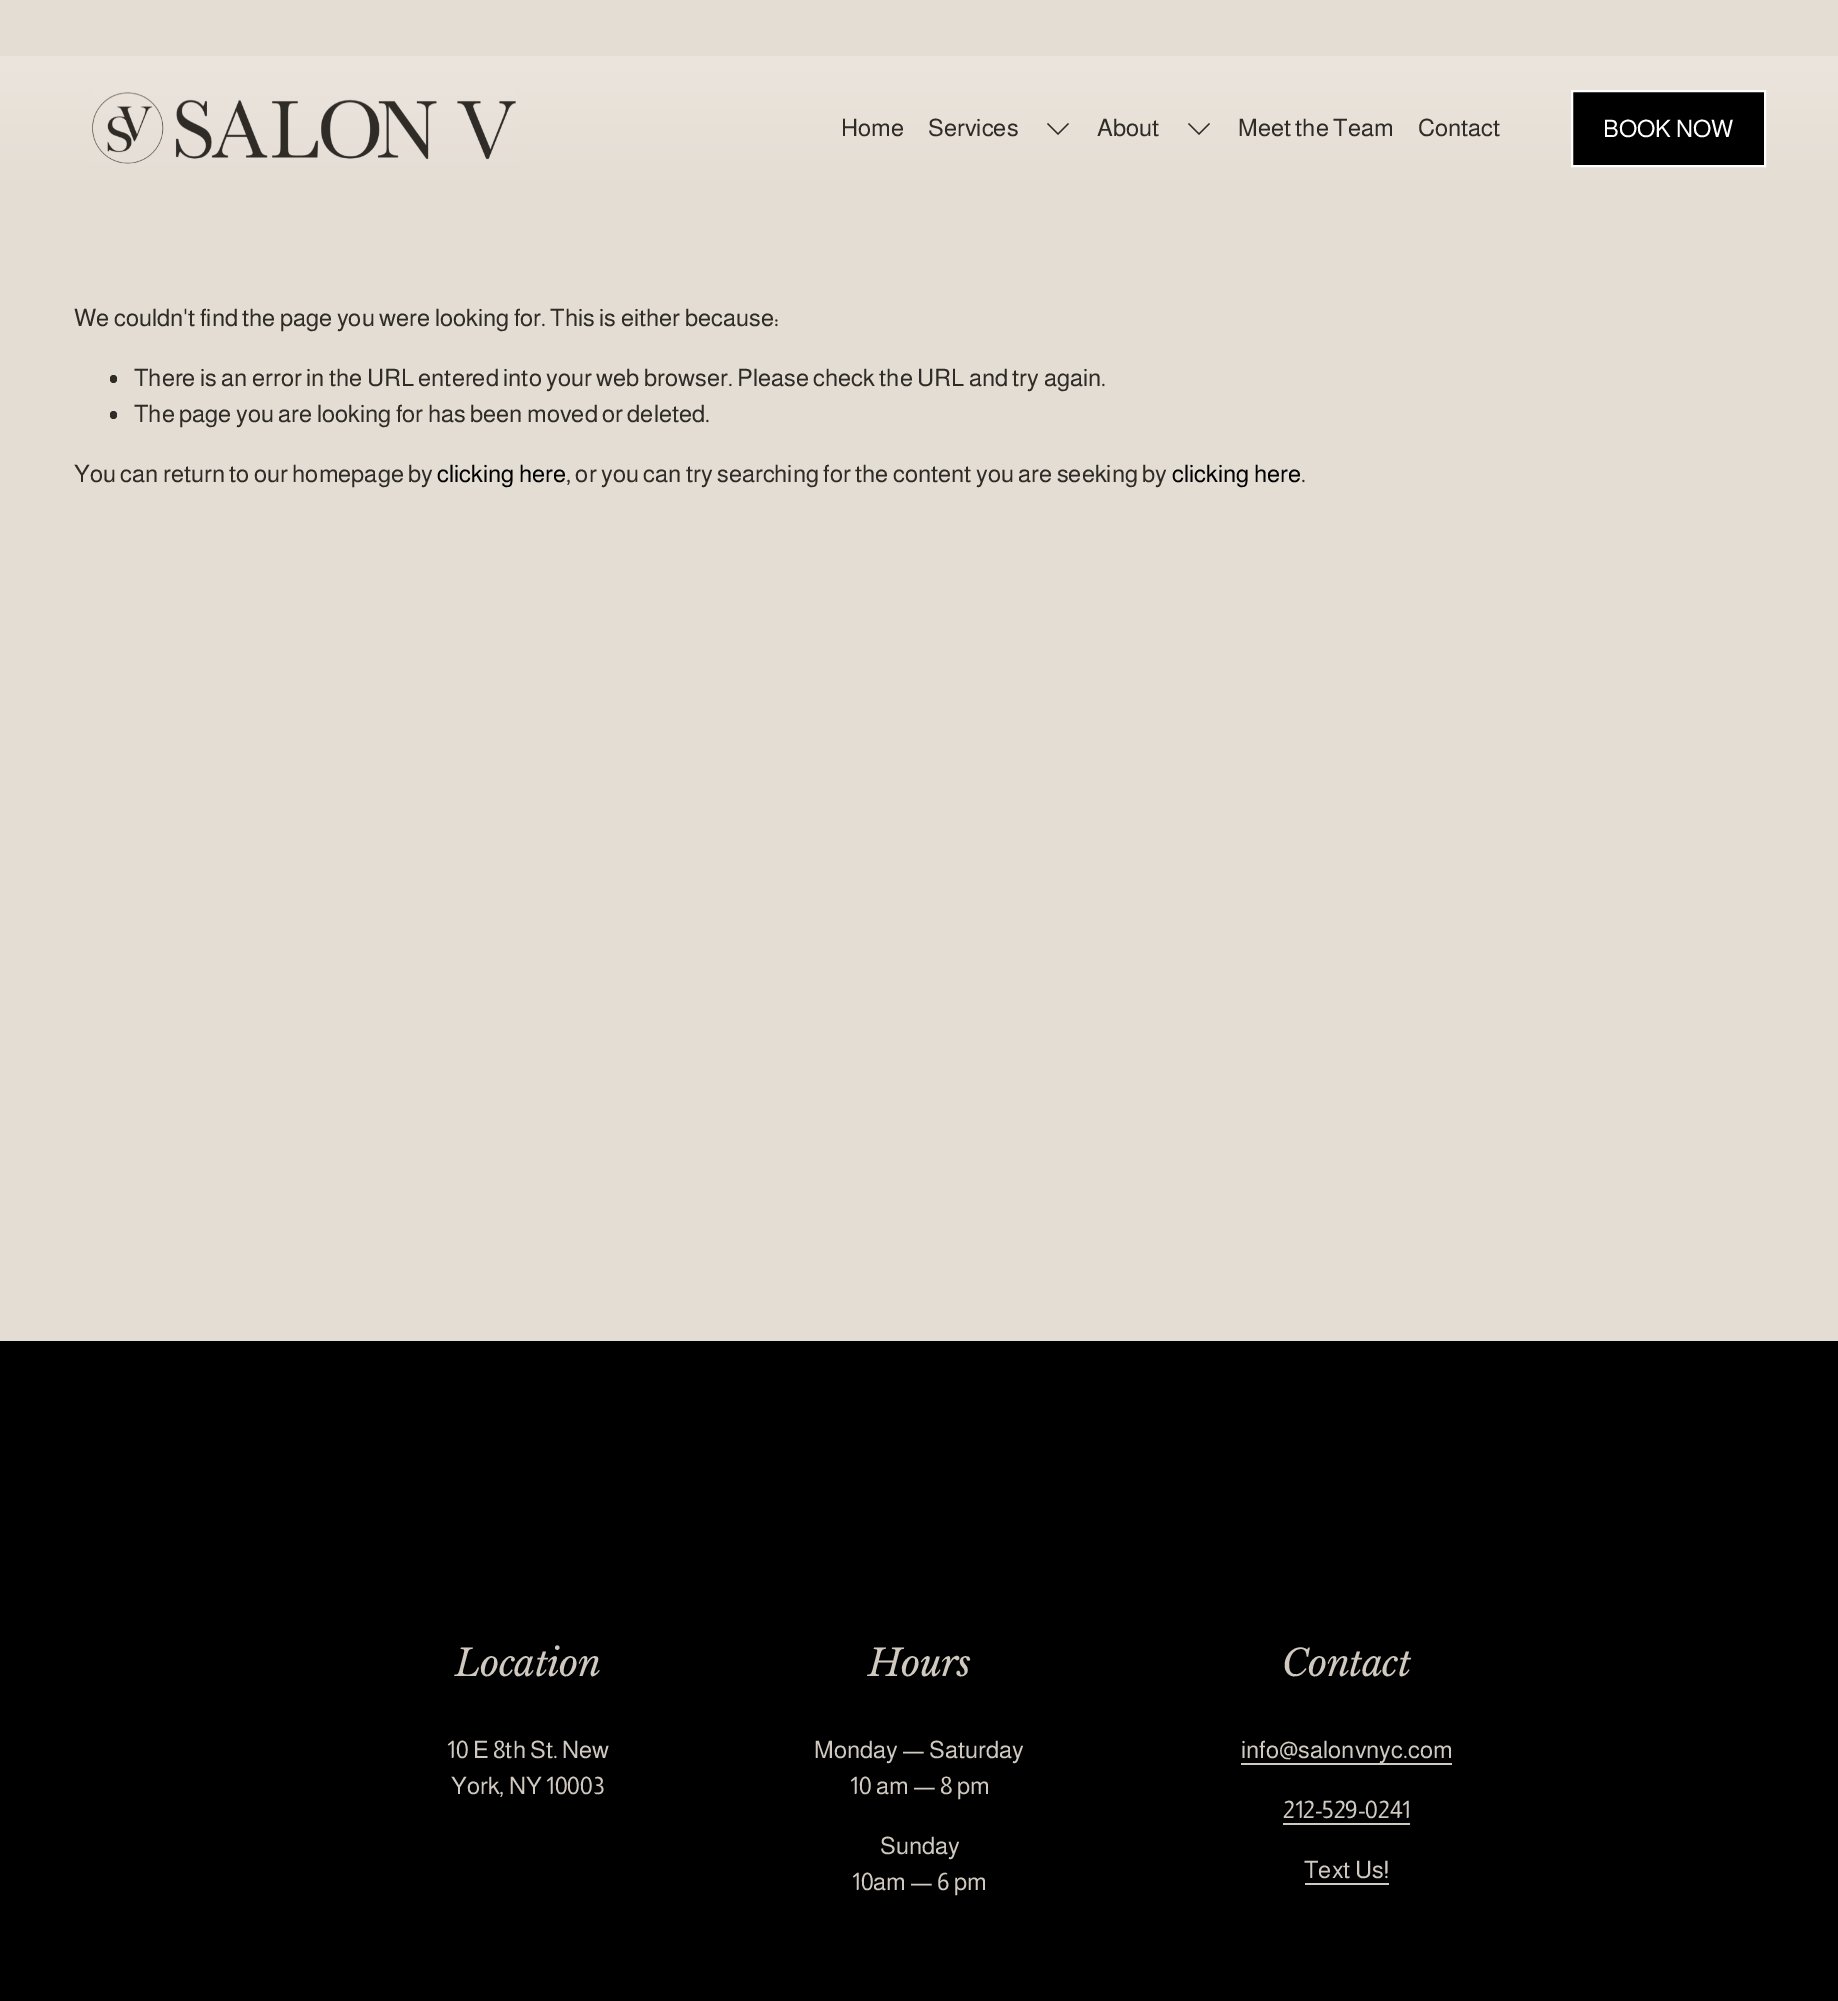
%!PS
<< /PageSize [1838 2001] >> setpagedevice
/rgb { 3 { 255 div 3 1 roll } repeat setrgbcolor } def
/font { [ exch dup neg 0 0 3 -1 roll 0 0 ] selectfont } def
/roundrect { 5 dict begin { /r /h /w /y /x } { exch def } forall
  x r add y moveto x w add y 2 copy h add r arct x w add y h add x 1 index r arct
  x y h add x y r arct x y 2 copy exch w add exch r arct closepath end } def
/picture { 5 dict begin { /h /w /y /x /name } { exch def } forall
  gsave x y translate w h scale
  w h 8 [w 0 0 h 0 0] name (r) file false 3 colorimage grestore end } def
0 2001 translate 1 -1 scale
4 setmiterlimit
227 221 211 rgb
0 0 1838 2001 rectfill
gsave 0 56 moveto 1838 56 lineto 1838 178 lineto 0 178 lineto closepath clip newpath
<< /ShadingType 2 /ColorSpace /DeviceRGB /Coords [920 55 920 203] /Extend [true true] /Function << /FunctionType 2 /Domain [0 1] /C0 [0.922 0.898 0.867] /C1 [0.894 0.863 0.831] /N 1 >> >> shfill grestore
(img/1.rgb) 92 92 424 72 picture
47 43 39 rgb
1.4 setlinewidth
2 setlinecap
1068 124 moveto 1058 134 lineto 1048 124 lineto stroke
1209 124 moveto 1199 134 lineto 1189 124 lineto stroke
0 0 0 rgb
1572 91 moveto 1765 91 lineto 1765 166 lineto 1572 166 lineto closepath gsave fill grestore
255 255 255 rgb
2 setlinewidth
0 setlinecap
stroke
47 43 39 rgb
110 375 7 8 3.5 roundrect fill
110 411 7 8 3.5 roundrect fill
[
  [0 1341 1838 660 0 0 0]
  [1241 1763 211 2 208 201 192]
  [1283 1823 127 2 208 201 192]
  [1305 1883 84 2 208 201 192]
] { aload pop rgb rectfill } forall
/Almarai-Regular 24 font
47 43 39 rgb
[
  [(Home) 841 136]
  [(Services) 928 136]
  [(About) 1097 136]
  [(Meet the Team) 1238 136]
  [(Contact) 1418 136]
] { aload pop moveto show } forall
255 255 255 rgb
1603 137 moveto (BOOK NOW) show
47 43 39 rgb
[
  [(We couldn't find the page you were looking for. This is either because:) 74 326]
  [(There is an error in the URL entered into your web browser. Please check the URL and try again.) 134 386]
  [(The page you are looking for has been moved or deleted.) 134 422]
  [(You can return to our homepage by) 74 482]
] { aload pop moveto show } forall
0 0 0 rgb
437 482 moveto (clicking here) show
47 43 39 rgb
566 482 moveto (, or you can try searching for the content you are seeking by) show
0 0 0 rgb
1172 482 moveto (clicking here) show
47 43 39 rgb
1301 482 moveto (.) show
/LibreBaskerville-Italic 37 font
208 201 192 rgb
455 1676 moveto -0.75 0 (Location) ashow
/Almarai-Regular 24 font
447 1758 moveto (10 E 8th St. New) show
451 1794 moveto (York, NY 10003) show
/LibreBaskerville-Italic 37 font
868 1676 moveto -0.75 0 (Hours) ashow
/Almarai-Regular 24 font
[
  [(Monday — Saturday) 814 1758]
  [(10 am — 8 pm) 850 1794]
  [(Sunday) 880 1854]
  [(10am — 6 pm) 852 1890]
] { aload pop moveto show } forall
/LibreBaskerville-Italic 37 font
1282 1676 moveto -0.75 0 (Contact) ashow
/Almarai-Regular 24 font
[
  [(info@salonvnyc.com) 1241 1758]
  [(212-529-0241) 1283 1818]
  [(Text Us!) 1304 1878]
] { aload pop moveto show } forall
showpage
